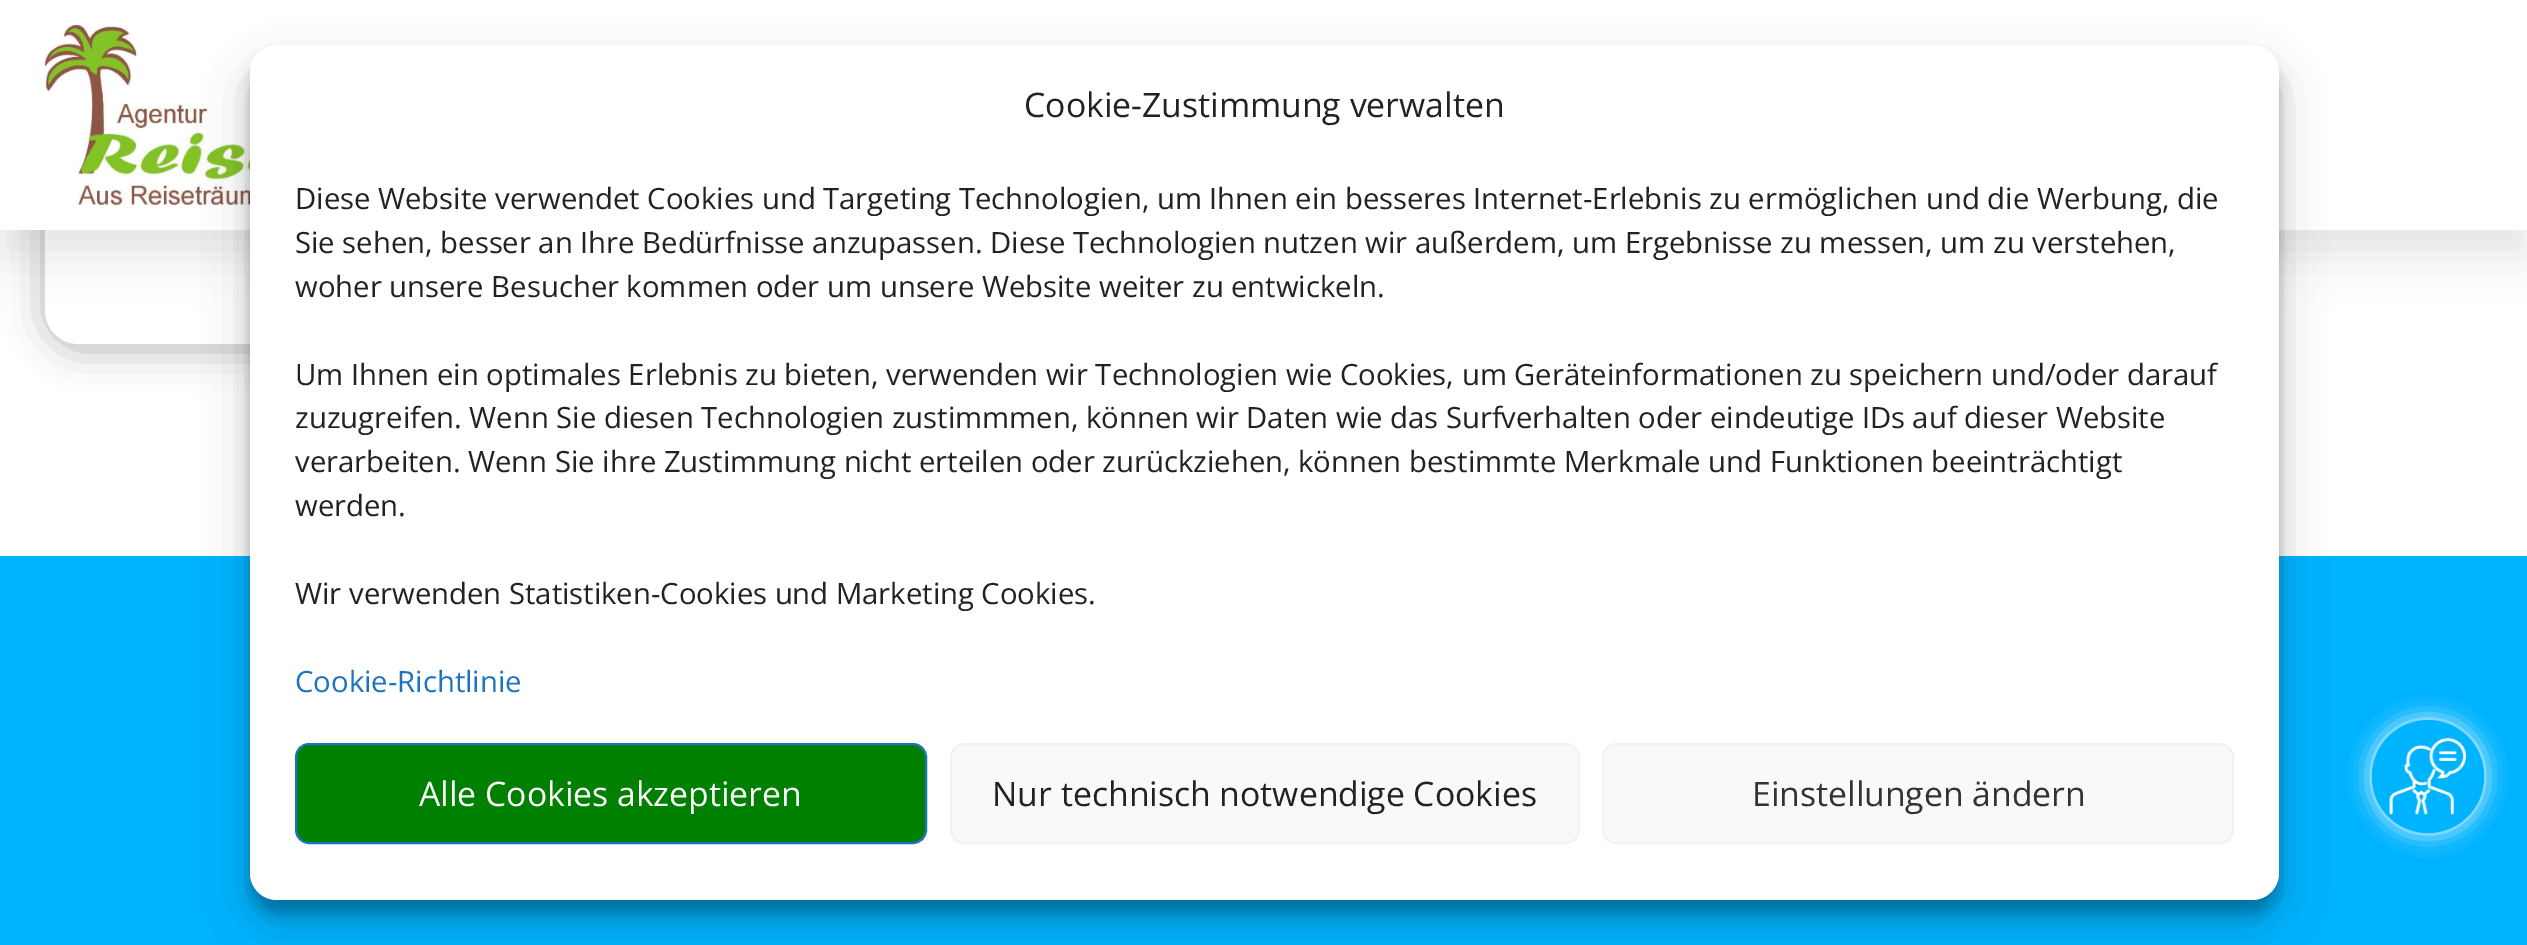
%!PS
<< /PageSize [2527 945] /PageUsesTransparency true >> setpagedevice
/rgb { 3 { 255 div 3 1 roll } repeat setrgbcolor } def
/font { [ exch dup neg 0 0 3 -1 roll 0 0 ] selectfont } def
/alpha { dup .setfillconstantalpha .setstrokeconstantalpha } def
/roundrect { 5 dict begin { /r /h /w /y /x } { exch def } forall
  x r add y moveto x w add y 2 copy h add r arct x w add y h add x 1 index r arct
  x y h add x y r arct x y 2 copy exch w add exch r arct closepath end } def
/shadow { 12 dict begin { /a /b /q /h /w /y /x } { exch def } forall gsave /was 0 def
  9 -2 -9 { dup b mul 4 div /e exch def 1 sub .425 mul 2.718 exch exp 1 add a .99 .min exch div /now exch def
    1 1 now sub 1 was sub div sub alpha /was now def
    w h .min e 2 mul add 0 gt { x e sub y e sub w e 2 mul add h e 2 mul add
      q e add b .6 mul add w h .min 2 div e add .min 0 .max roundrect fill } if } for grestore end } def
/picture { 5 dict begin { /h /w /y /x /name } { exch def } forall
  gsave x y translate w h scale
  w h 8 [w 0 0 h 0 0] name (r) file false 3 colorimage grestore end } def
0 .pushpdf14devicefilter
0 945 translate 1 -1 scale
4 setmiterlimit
255 255 255 rgb
0 0 2527 945 rectfill
0 0 0 rgb
45 -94 767 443 34 20 0.3 shadow
255 255 255 rgb
45 176 moveto 812 176 lineto 812 310 lineto 812 329 797 344 778 344 curveto 79 344 lineto 60 344 45 329 45 310 curveto closepath fill
0 179 255 rgb
0 556 2527 389 rectfill
255 255 255 rgb
2372 720 112 113 56 11 1 shadow
0 179 255 rgb
2372 720 112 113 56 roundrect fill
(img/1.rgb) 2389 738 77 77 picture
0 0 0 rgb
0 27 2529 230 0 22.5 0.1 shadow
255 255 255 rgb
0 0 2527 230 rectfill
(img/2.rgb) 45 25 482 180 picture
0 0 0 rgb
250 59 2029 855 27 7 0.23 shadow
250 68 2029 855 27 22.5 0.19 shadow
255 255 255 rgb
250 45 2029 855 27 roundrect fill
0 128 0 rgb
296 744 630 99 13 roundrect gsave fill grestore
30 115 190 rgb
2 setlinewidth
stroke
249 249 249 rgb
951 744 628 99 13 roundrect gsave fill grestore
242 242 242 rgb
stroke
249 249 249 rgb
1603 744 630 99 13 roundrect gsave fill grestore
242 242 242 rgb
stroke
/OpenSans-Regular 33.75 font
34 34 34 rgb
1024 117 moveto (Cookie-Zustimmung verwalten) show
/OpenSans-Regular 29.25 font
[
  [(Diese Website verwendet Cookies und Targeting Technologien, um Ihnen ein besseres Internet-Erlebnis zu ermöglichen und die Werbung, die) 295 209]
  [(Sie sehen, besser an Ihre Bedürfnisse anzupassen. Diese Technologien nutzen wir außerdem, um Ergebnisse zu messen, um zu verstehen,) 295 253]
  [(woher unsere Besucher kommen oder um unsere Website weiter zu entwickeln.) 295 297]
  [(Um Ihnen ein optimales Erlebnis zu bieten, verwenden wir Technologien wie Cookies, um Geräteinformationen zu speichern und/oder darauf) 295 385]
  [(zuzugreifen. Wenn Sie diesen Technologien zustimmmen, können wir Daten wie das Surfverhalten oder eindeutige IDs auf dieser Website) 295 428]
  [(verarbeiten. Wenn Sie ihre Zustimmung nicht erteilen oder zurückziehen, können bestimmte Merkmale und Funktionen beeinträchtigt) 295 472]
  [(werden.) 295 516]
  [(Wir verwenden Statistiken-Cookies und Marketing Cookies.) 295 604]
] { aload pop moveto show } forall
30 115 190 rgb
295 692 moveto (Cookie-Richtlinie) show
/OpenSans-Regular 33.75 font
255 255 255 rgb
419 806 moveto (Alle Cookies akzeptieren) show
34 34 34 rgb
992 806 moveto (Nur technisch notwendige Cookies) show
51 51 51 rgb
1752 806 moveto (Einstellungen ändern) show
.poppdf14devicefilter showpage
